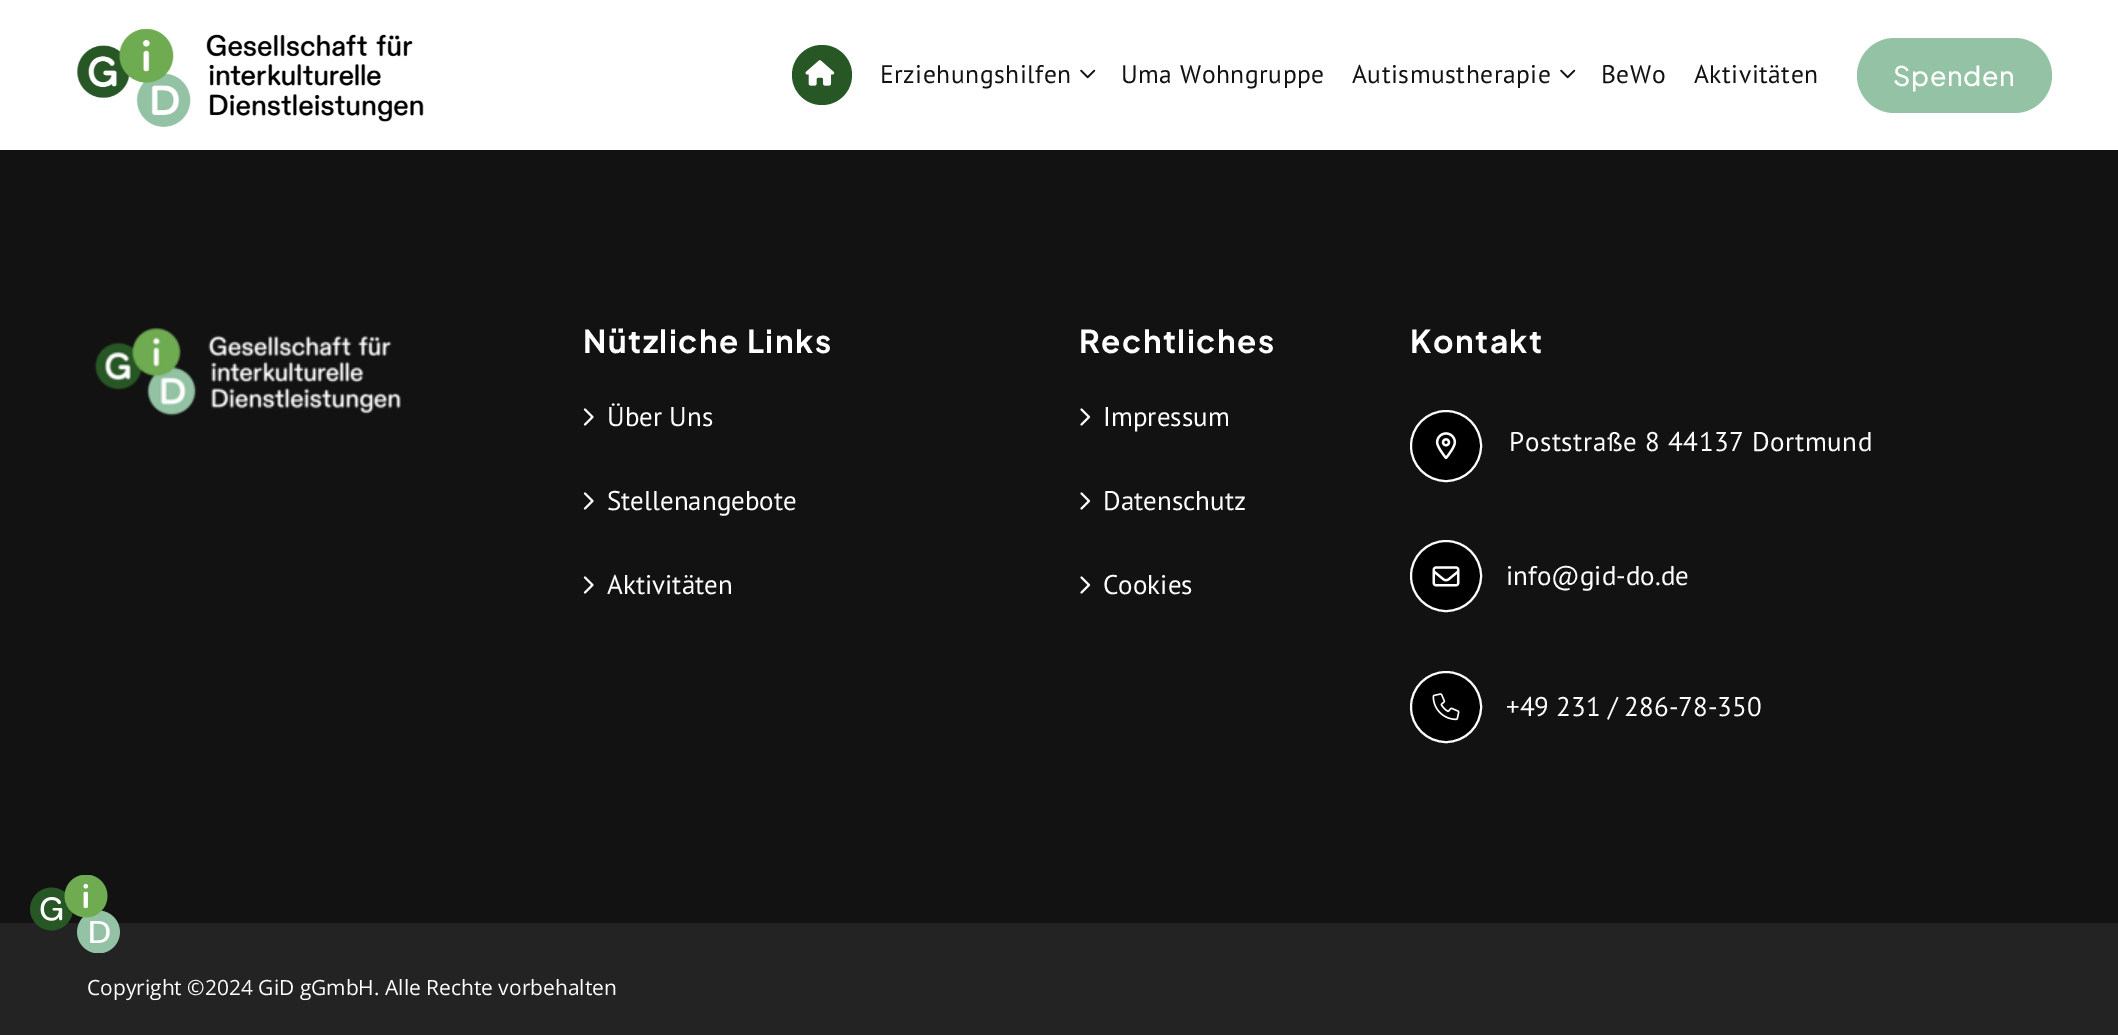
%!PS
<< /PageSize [2118 1035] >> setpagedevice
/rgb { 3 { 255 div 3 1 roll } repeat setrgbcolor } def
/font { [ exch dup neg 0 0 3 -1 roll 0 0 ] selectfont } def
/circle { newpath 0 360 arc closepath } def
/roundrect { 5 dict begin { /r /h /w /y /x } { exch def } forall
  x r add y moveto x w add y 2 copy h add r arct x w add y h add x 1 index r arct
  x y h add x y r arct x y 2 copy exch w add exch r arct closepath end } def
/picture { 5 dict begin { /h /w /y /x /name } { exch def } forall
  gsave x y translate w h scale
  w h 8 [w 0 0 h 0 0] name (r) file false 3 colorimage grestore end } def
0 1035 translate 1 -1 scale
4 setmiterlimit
18 18 18 rgb
0 0 2118 1035 rectfill
255 255 255 rgb
0 0 2118 150 rectfill
(img/1.rgb) 76 28 348 99 picture
40 87 38 rgb
822 75 30 circle fill
(img/2.rgb) 805 60 30 26 picture
(img/3.rgb) 1080 69 16 10 picture
(img/3.rgb) 1560 69 16 10 picture
147 194 164 rgb
1857 38 195 75 37.5 roundrect fill
(img/4.rgb) 94 327 307 89 picture
(img/5.rgb) 583 408 11 18 picture
(img/5.rgb) 583 492 11 18 picture
(img/5.rgb) 583 576 11 18 picture
(img/6.rgb) 1080 408 11 18 picture
(img/6.rgb) 1080 492 11 18 picture
(img/6.rgb) 1080 576 11 18 picture
0 0 0 rgb
1446 446 35 circle gsave fill grestore
255 255 255 rgb
2 setlinewidth
stroke
(img/7.rgb) 1435 432 22 28 picture
0 0 0 rgb
1446 576 35 circle gsave fill grestore
255 255 255 rgb
stroke
(img/8.rgb) 1432 566 28 21 picture
0 0 0 rgb
1446 707 35 circle gsave fill grestore
255 255 255 rgb
stroke
(img/9.rgb) 1432 693 28 28 picture
35 35 35 rgb
0 923 2118 112 rectfill
(img/10.rgb) 30 875 90 78 picture
/PTSans-Regular 25.5 font
18 18 18 rgb
880 83 moveto 0.55 0 (Erziehungshilfen) ashow
1121 83 moveto 0.55 0 (Uma Wohngruppe) ashow
1352 83 moveto 0.55 0 (Autismustherapie) ashow
1601 83 moveto 0.55 0 (BeWo) ashow
1694 83 moveto 0.55 0 (Aktivitäten) ashow
/PlusJakartaSans-Medium 27 font
255 255 255 rgb
1893 86 moveto 0.55 0 (Spenden) ashow
/PlusJakartaSans-Bold 31.5 font
583 353 moveto 1.5 0 (Nützliche Links) ashow
/PTSans-Regular 27 font
[
  [(Über Uns) 607 426]
  [(Stellenangebote) 607 510]
  [(Aktivitäten) 607 594]
] { aload pop moveto show } forall
/PlusJakartaSans-Bold 31.5 font
1079 353 moveto 1.5 0 (Rechtliches) ashow
/PTSans-Regular 27 font
[
  [(Impressum) 1103 426]
  [(Datenschutz) 1103 510]
  [(Cookies) 1103 594]
] { aload pop moveto show } forall
/PlusJakartaSans-Bold 31.5 font
1410 353 moveto 1.5 0 (Kontakt) ashow
/PTSans-Regular 27 font
1509 451 moveto 0.55 0 (Poststraße 8 44137 Dortmund) ashow
1506 585 moveto (info@gid-do.de) show
1506 716 moveto (+49 231 / 286-78-350) show
/OpenSans-Regular 21 font
87 995 moveto (Copyright ©2024 GiD gGmbH. Alle Rechte vorbehalten) show
showpage
